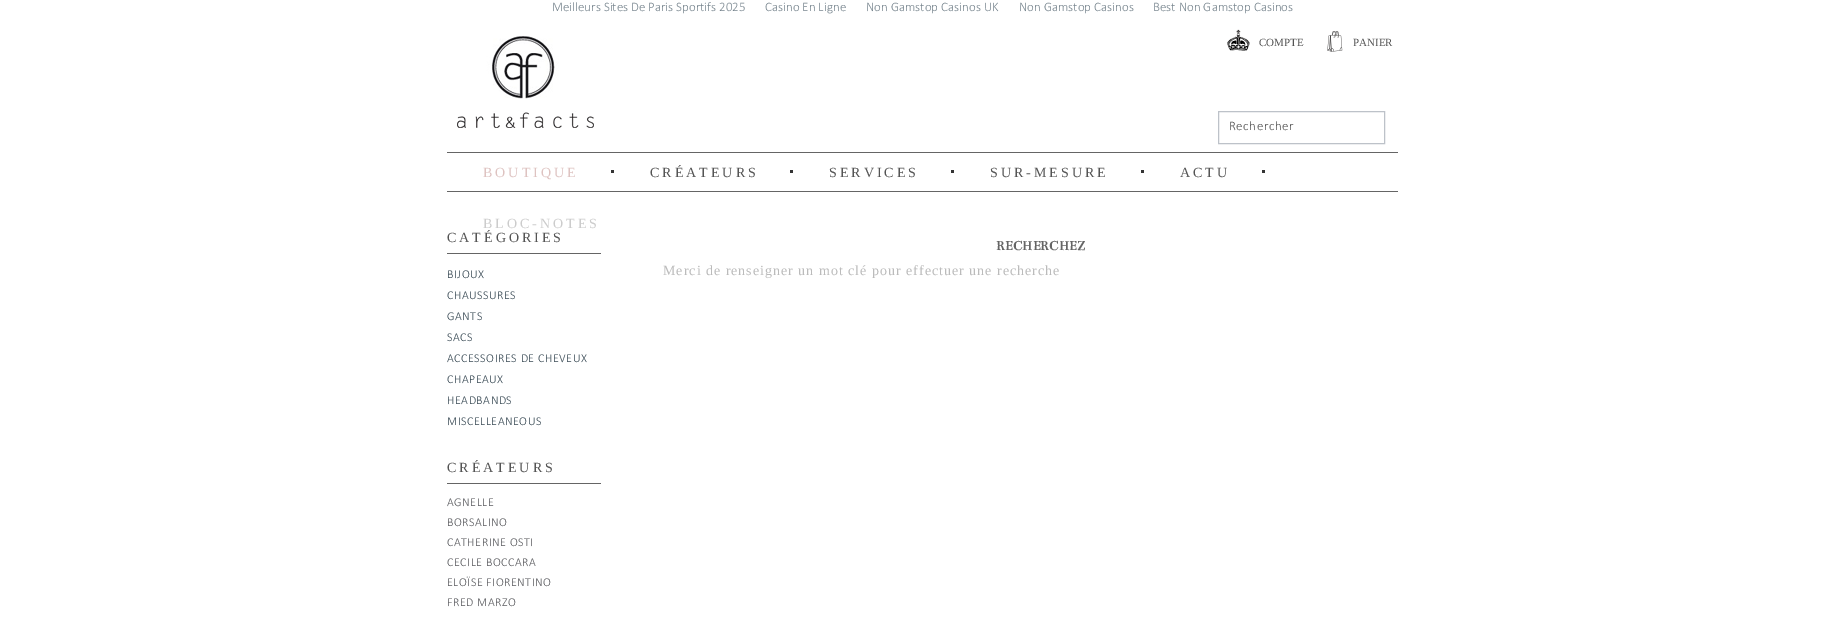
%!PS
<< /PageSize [1845 621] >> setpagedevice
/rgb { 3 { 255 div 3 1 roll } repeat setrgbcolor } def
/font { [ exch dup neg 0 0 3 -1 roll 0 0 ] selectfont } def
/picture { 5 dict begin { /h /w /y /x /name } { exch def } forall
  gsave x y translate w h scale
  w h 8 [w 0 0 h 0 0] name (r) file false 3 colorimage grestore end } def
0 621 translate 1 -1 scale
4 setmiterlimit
255 255 255 rgb
0 0 1845 621 rectfill
(img/1.rgb) 457 36 137 92 picture
(img/2.rgb) 1227 29 23 22 picture
(img/3.rgb) 1327 31 16 21 picture
189 194 201 rgb
1218.5 111.5 166 32 rectstroke
(img/4.rgb) 447 150 951 42 picture
[
  [611 170 3 3 52 52 52]
  [790 170 3 3 52 52 52]
  [951 170 3 3 52 52 52]
  [1141 170 3 3 52 52 52]
  [1262 170 3 3 52 52 52]
  [447 253 154 1 101 101 101]
  [447 483 154 1 101 101 101]
] { aload pop rgb rectfill } forall
/Calibri-Light 13 font
119 133 142 rgb
[
  [(Meilleurs Sites De Paris Sportifs 2025) 552 11]
  [(Casino En Ligne) 765 11]
  [(Non Gamstop Casinos UK) 866 11]
  [(Non Gamstop Casinos) 1019 11]
  [(Best Non Gamstop Casinos) 1153 11]
] { aload pop moveto show } forall
/LiberationSerif-Regular 11 font
84 84 84 rgb
1259 46 moveto (COMPTE) show
1353 46 moveto (PANIER) show
/Calibri-Light 13 font
1229 130 moveto 0.5 0 (Rechercher) ashow
/LiberationSerif-Regular 14 font
222 195 193 rgb
483 177 moveto 3 0 (BOUTIQUE) ashow
84 84 84 rgb
650 177 moveto 3 0 (CRÉATEURS) ashow
829 177 moveto 3 0 (SERVICES) ashow
990 177 moveto 3 0 (SUR-MESURE) ashow
1180 177 moveto 3 0 (ACTU) ashow
204 204 204 rgb
483 228 moveto 3 0 (BLOC-NOTES) ashow
84 84 84 rgb
447 242 moveto 3 0 (CATÉGORIES) ashow
/Calibri-Light 12 font
55 72 83 rgb
447 278 moveto 0.5 0 (BIJOUX) ashow
447 299 moveto 0.5 0 (CHAUSSURES) ashow
447 320 moveto 0.5 0 (GANTS) ashow
447 341 moveto 0.5 0 (SACS) ashow
447 362 moveto 0.5 0 (ACCESSOIRES DE CHEVEUX) ashow
447 383 moveto 0.5 0 (CHAPEAUX) ashow
447 404 moveto 0.5 0 (HEADBANDS) ashow
447 425 moveto 0.5 0 (MISCELLEANEOUS) ashow
/LiberationSerif-Regular 14 font
84 84 84 rgb
447 472 moveto 3 0 (CRÉATEURS) ashow
/Calibri-Light 12 font
89 90 94 rgb
447 506 moveto 0.5 0 (AGNELLE) ashow
447 526 moveto 0.5 0 (BORSALINO) ashow
447 546 moveto 0.5 0 (CATHERINE OSTI) ashow
447 566 moveto 0.5 0 (CECILE BOCCARA) ashow
447 586 moveto 0.5 0 (ELOÏSE FIORENTINO) ashow
447 606 moveto 0.5 0 (FRED MARZO) ashow
/Bentham-Bold 14 font
101 101 101 rgb
996 250 moveto (RECHERCHEZ) show
/LiberationSerif-Regular 14 font
187 187 187 rgb
663 275 moveto 1 0 (Merci de renseigner un mot clé pour effectuer une recherche) ashow
showpage
